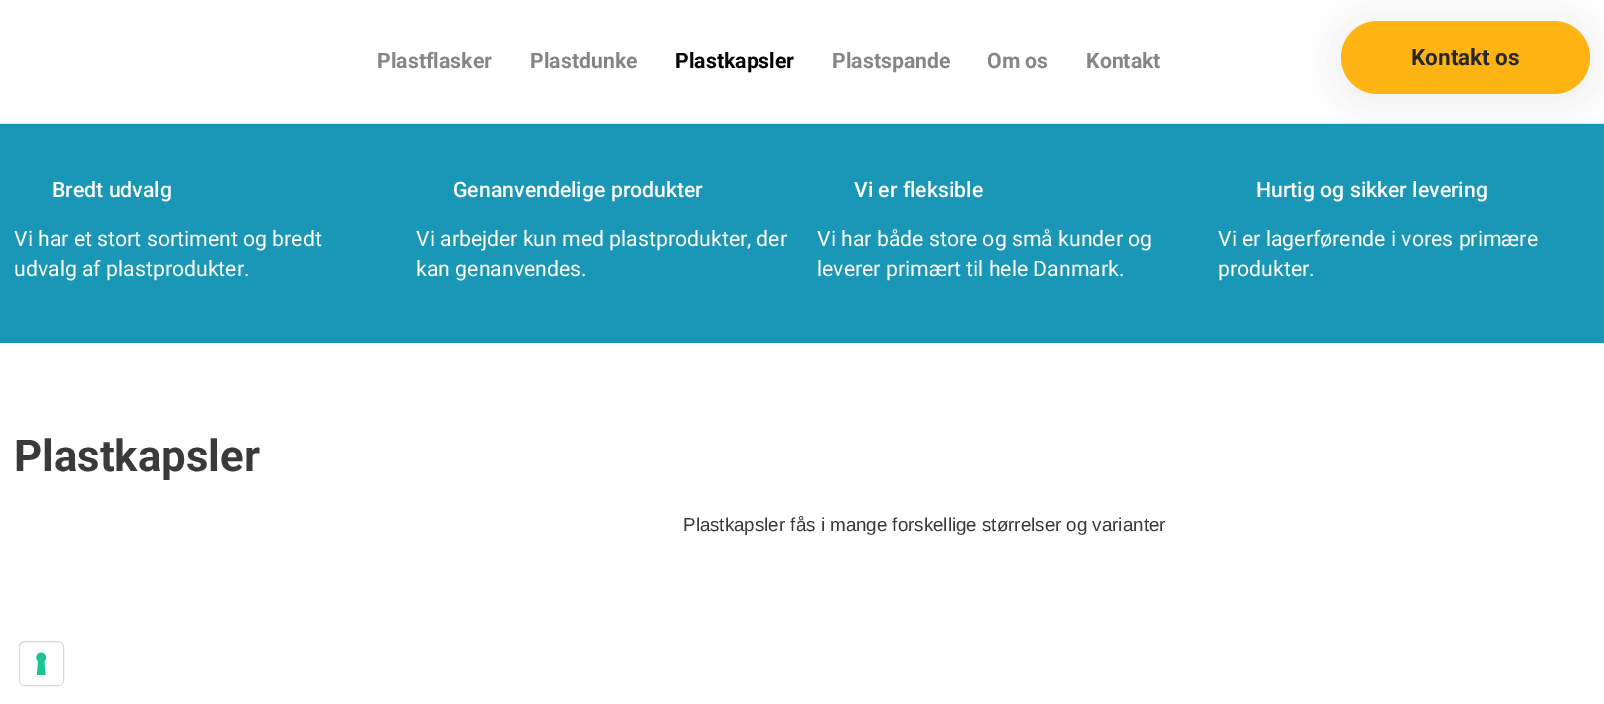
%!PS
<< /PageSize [1604 704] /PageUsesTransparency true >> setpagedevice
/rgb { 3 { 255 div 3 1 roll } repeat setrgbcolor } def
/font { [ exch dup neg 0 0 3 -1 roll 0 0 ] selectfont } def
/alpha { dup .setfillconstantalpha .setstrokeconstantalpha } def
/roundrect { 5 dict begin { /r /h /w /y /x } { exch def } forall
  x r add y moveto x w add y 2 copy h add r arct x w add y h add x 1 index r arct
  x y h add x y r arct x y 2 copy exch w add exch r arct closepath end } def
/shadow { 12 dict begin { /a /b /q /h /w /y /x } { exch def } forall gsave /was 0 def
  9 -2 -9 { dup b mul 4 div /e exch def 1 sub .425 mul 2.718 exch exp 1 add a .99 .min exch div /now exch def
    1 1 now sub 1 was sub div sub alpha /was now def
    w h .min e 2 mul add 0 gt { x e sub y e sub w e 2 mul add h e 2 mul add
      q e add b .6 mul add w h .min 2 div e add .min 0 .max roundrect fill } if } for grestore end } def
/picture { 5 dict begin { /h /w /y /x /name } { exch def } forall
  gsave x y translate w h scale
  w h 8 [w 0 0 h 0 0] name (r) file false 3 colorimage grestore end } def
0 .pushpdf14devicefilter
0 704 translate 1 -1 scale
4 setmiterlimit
255 255 255 rgb
0 0 1604 704 rectfill
225 225 225 rgb
0 123 1604 1 rectfill
26 34 40 rgb
1341 25 249 73 36.5 19 0.08 shadow
254 180 19 rgb
1341 21 249 73 36.5 roundrect fill
26 151 183 rgb
0 124 1604 219 rectfill
217 217 217 rgb
19.5 641.5 44 44 5.5 roundrect stroke
255 255 255 rgb
20 643 43 42 5 roundrect fill
(img/1.rgb) 36 652 11 23 picture
/Roboto-Bold 21.25 font
131 134 136 rgb
377 68 moveto (Plastflasker) show
530 68 moveto (Plastdunke) show
0 0 0 rgb
675 68 moveto (Plastkapsler) show
131 134 136 rgb
[
  [(Plastspande) 832 68]
  [(Om os) 987 68]
  [(Kontakt) 1086 68]
] { aload pop moveto show } forall
/Roboto-Bold 22.5 font
40 40 40 rgb
1411 65 moveto (Kontakt os) show
/Roboto-Medium 21.25 font
255 255 255 rgb
52 197 moveto (Bredt udvalg) show
/Roboto-Regular 21.25 font
14 246 moveto (Vi har et stort sortiment og bredt) show
14 276 moveto (udvalg af plastprodukter.) show
/Roboto-Medium 21.25 font
453 197 moveto (Genanvendelige produkter) show
/Roboto-Regular 21.25 font
416 246 moveto (Vi arbejder kun med plastprodukter, der) show
416 276 moveto (kan genanvendes.) show
/Roboto-Medium 21.25 font
854 197 moveto (Vi er fleksible) show
/Roboto-Regular 21.25 font
817 246 moveto (Vi har både store og små kunder og) show
817 276 moveto (leverer primært til hele Danmark.) show
/Roboto-Medium 21.25 font
1256 197 moveto (Hurtig og sikker levering) show
/Roboto-Regular 21.25 font
1218 246 moveto (Vi er lagerførende i vores primære) show
1218 276 moveto (produkter.) show
/Roboto-Bold 43.75 font
58 58 58 rgb
14 471 moveto (Plastkapsler) show
/LiberationSans-Regular 18.75 font
683 531 moveto (Plastkapsler fås i mange forskellige størrelser og varianter) show
.poppdf14devicefilter showpage
